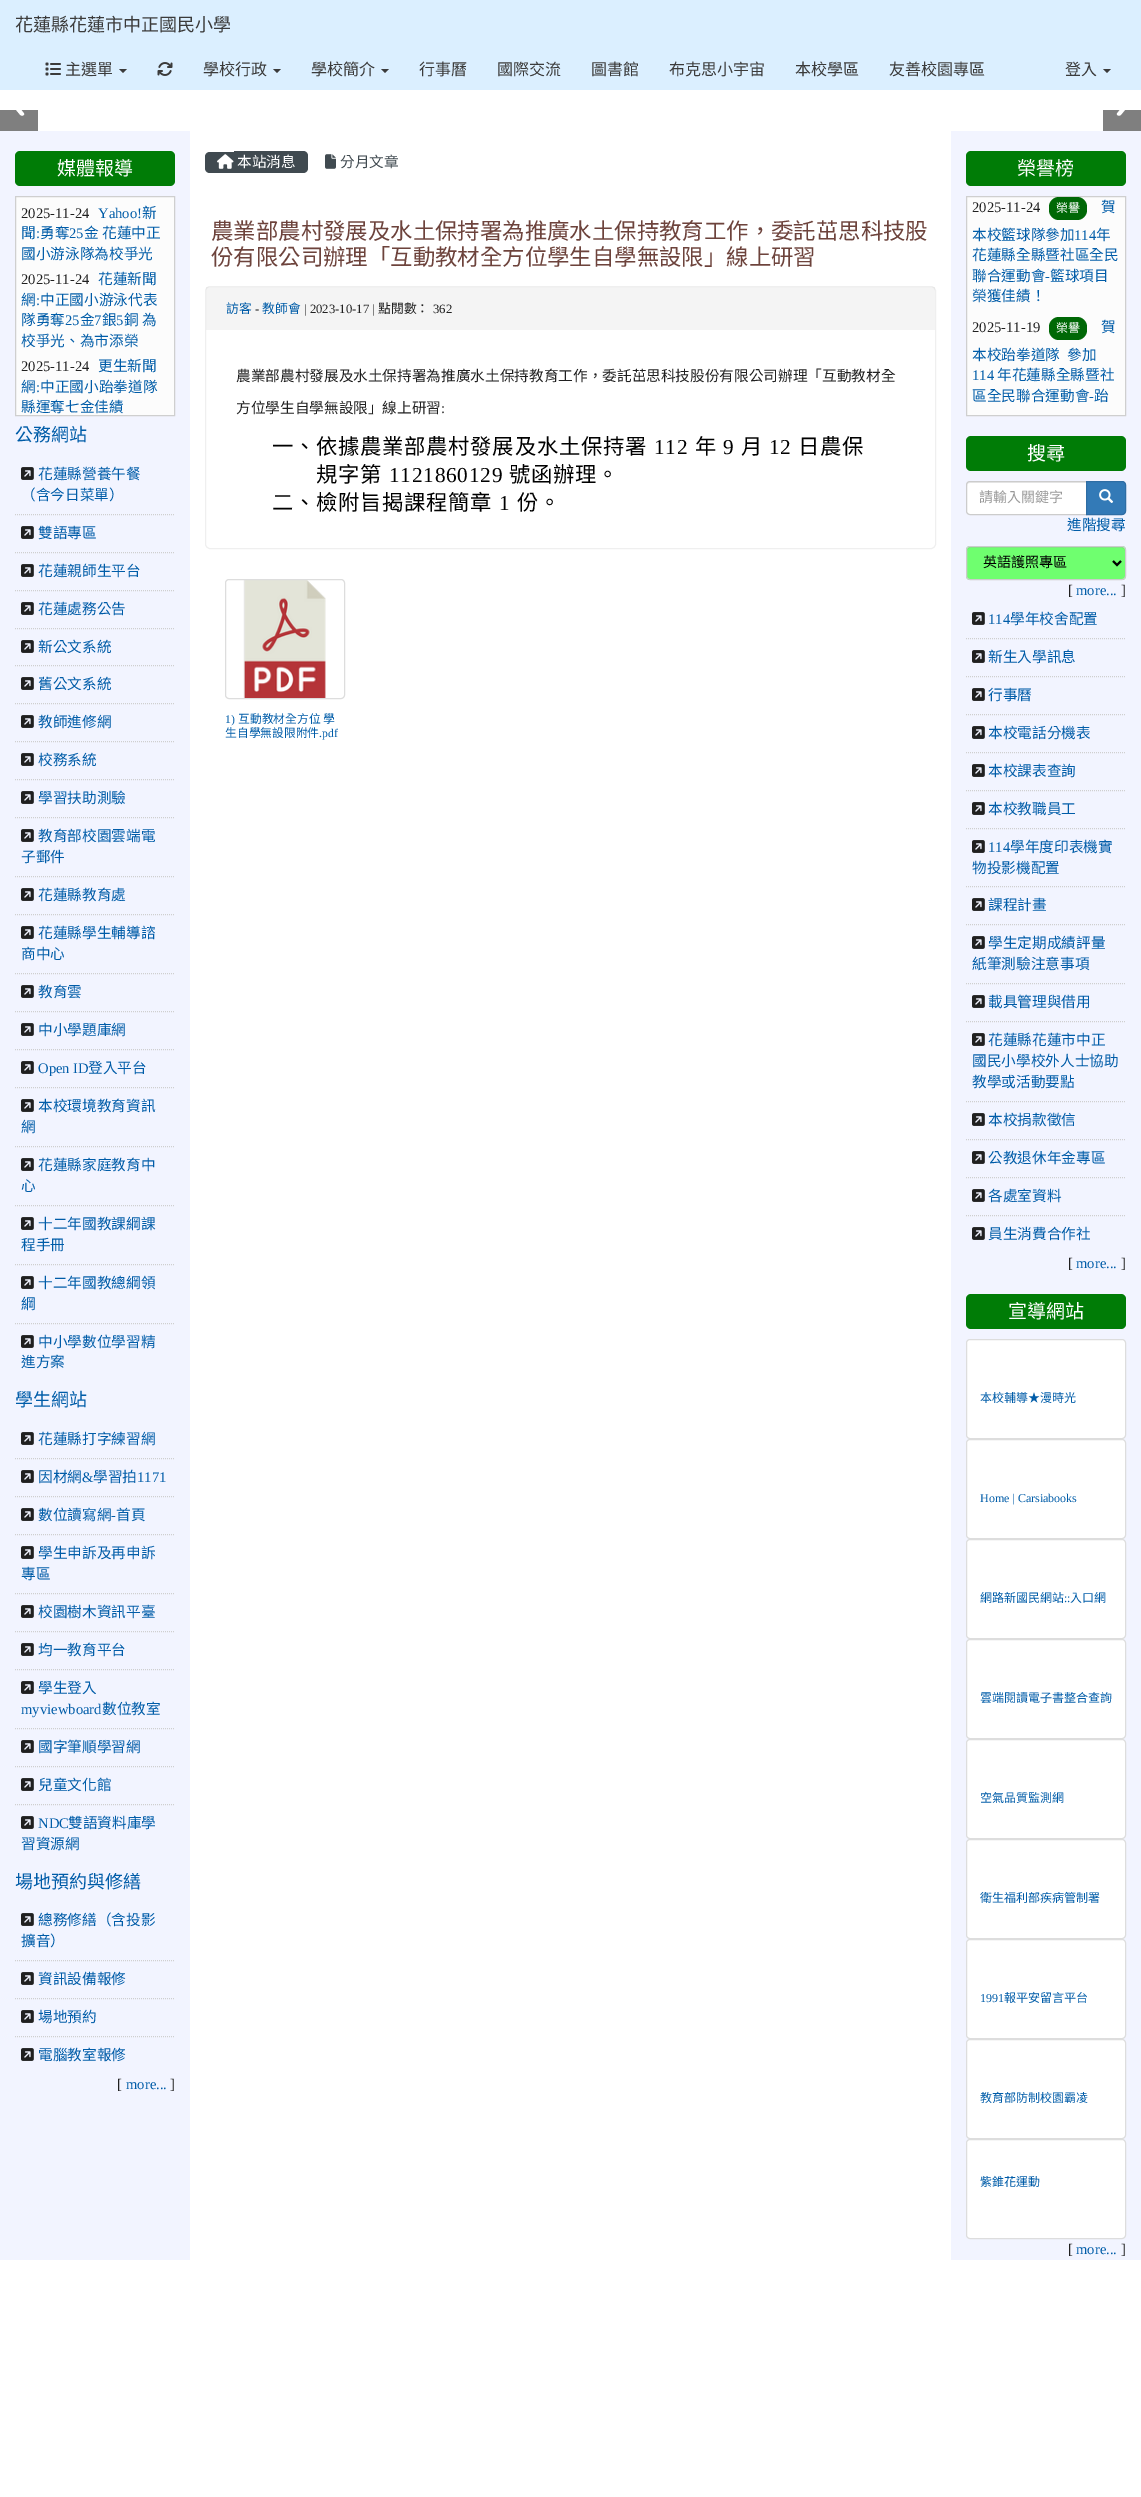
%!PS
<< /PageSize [1141 2497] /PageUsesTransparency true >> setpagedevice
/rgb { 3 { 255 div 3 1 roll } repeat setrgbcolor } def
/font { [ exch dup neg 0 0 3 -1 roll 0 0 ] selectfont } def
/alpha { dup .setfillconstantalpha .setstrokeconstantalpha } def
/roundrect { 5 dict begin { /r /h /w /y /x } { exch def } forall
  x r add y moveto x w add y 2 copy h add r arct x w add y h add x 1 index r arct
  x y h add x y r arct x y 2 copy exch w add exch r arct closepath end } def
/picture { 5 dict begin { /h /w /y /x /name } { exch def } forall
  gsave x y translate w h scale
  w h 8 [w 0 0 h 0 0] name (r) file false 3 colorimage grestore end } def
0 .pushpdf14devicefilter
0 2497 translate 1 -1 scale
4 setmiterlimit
255 255 255 rgb
0 0 1141 2497 rectfill
219 239 255 rgb
0 0 1141 90 rectfill
(img/1.rgb) 45 62 16 14 picture
59 59 59 rgb
119 69 moveto 127 69 lineto 123 73 lineto closepath fill
(img/2.rgb) 157 62 16 14 picture
273 69 moveto 281 69 lineto 277 73 lineto closepath fill
381 69 moveto 389 69 lineto 385 73 lineto closepath fill
1103 69 moveto 1111 69 lineto 1107 73 lineto closepath fill
(img/3.rgb) 0 110 38 21 picture
(img/4.rgb) 1103 110 38 21 picture
242 244 255 rgb
0 131 190 2129 rectfill
0 124 6 rgb
15 151 160 35 5 roundrect fill
252 252 252 rgb
15.5 196.5 moveto 174.5 196.5 lineto 174.5 415.5 lineto 15.5 415.5 lineto closepath gsave fill grestore
207 207 207 rgb
stroke
[1 1] 0 setdash
15 514.5 moveto 175 514.5 lineto stroke
(img/5.rgb) 21 467 13 13 picture
15 552.5 moveto 175 552.5 lineto stroke
(img/5.rgb) 21 526 13 13 picture
15 590.5 moveto 175 590.5 lineto stroke
(img/5.rgb) 21 564 13 13 picture
15 628.5 moveto 175 628.5 lineto stroke
(img/5.rgb) 21 602 13 13 picture
15 665.5 moveto 175 665.5 lineto stroke
(img/5.rgb) 21 640 13 13 picture
15 703.5 moveto 175 703.5 lineto stroke
(img/5.rgb) 21 677 13 13 picture
15 741.5 moveto 175 741.5 lineto stroke
(img/5.rgb) 21 715 13 13 picture
15 779.5 moveto 175 779.5 lineto stroke
(img/5.rgb) 21 753 13 13 picture
15 817.5 moveto 175 817.5 lineto stroke
(img/5.rgb) 21 791 13 13 picture
15 876.5 moveto 175 876.5 lineto stroke
(img/5.rgb) 21 829 13 13 picture
15 914.5 moveto 175 914.5 lineto stroke
(img/5.rgb) 21 888 13 13 picture
15 973.5 moveto 175 973.5 lineto stroke
(img/5.rgb) 21 926 13 13 picture
15 1011.5 moveto 175 1011.5 lineto stroke
(img/5.rgb) 21 985 13 13 picture
15 1049.5 moveto 175 1049.5 lineto stroke
(img/5.rgb) 21 1023 13 13 picture
15 1087.5 moveto 175 1087.5 lineto stroke
(img/5.rgb) 21 1061 13 13 picture
15 1146.5 moveto 175 1146.5 lineto stroke
(img/5.rgb) 21 1099 13 13 picture
15 1205.5 moveto 175 1205.5 lineto stroke
(img/5.rgb) 21 1158 13 13 picture
15 1264.5 moveto 175 1264.5 lineto stroke
(img/5.rgb) 21 1217 13 13 picture
15 1323.5 moveto 175 1323.5 lineto stroke
(img/5.rgb) 21 1276 13 13 picture
(img/5.rgb) 21 1335 13 13 picture
15 1458.5 moveto 175 1458.5 lineto stroke
(img/5.rgb) 21 1432 13 13 picture
15 1496.5 moveto 175 1496.5 lineto stroke
(img/5.rgb) 21 1470 13 13 picture
15 1534.5 moveto 175 1534.5 lineto stroke
(img/5.rgb) 21 1508 13 13 picture
15 1593.5 moveto 175 1593.5 lineto stroke
(img/5.rgb) 21 1546 13 13 picture
15 1631.5 moveto 175 1631.5 lineto stroke
(img/5.rgb) 21 1605 13 13 picture
15 1669.5 moveto 175 1669.5 lineto stroke
(img/5.rgb) 21 1643 13 13 picture
15 1728.5 moveto 175 1728.5 lineto stroke
(img/5.rgb) 21 1681 13 13 picture
15 1766.5 moveto 175 1766.5 lineto stroke
(img/5.rgb) 21 1740 13 13 picture
15 1804.5 moveto 175 1804.5 lineto stroke
(img/5.rgb) 21 1778 13 13 picture
(img/5.rgb) 21 1816 13 13 picture
15 1960.5 moveto 175 1960.5 lineto stroke
(img/5.rgb) 21 1913 13 13 picture
15 1998.5 moveto 175 1998.5 lineto stroke
(img/5.rgb) 21 1972 13 13 picture
15 2036.5 moveto 175 2036.5 lineto stroke
(img/5.rgb) 21 2010 13 13 picture
(img/5.rgb) 21 2048 13 13 picture
64 74 80 rgb
210 152 moveto 234 152 lineto 234 173 lineto 210 173 lineto 207 173 205 171 205 168 curveto 205 157 lineto 205 154 207 152 210 152 curveto closepath fill
234 151 moveto 303 151 lineto 306 151 308 153 308 156 curveto 308 168 lineto 308 171 306 173 303 173 curveto 234 173 lineto closepath fill
(img/6.rgb) 217 154 17 15 picture
(img/7.rgb) 325 154 11 15 picture
239 239 239 rgb
[] 0 setdash
205.5 286.5 730 262 4.5 roundrect stroke
0.2 alpha
200 200 200 rgb
206 287 729 43 rectfill
1 alpha
(img/8.rgb) 243 580 83 118 picture
221 221 221 rgb
225.5 579.5 119 119 3.5 roundrect stroke
242 244 255 rgb
951 131 190 2129 rectfill
0 124 6 rgb
966 151 160 35 5 roundrect fill
252 252 252 rgb
966.5 196.5 moveto 1125.5 196.5 lineto 1125.5 415.5 lineto 966.5 415.5 lineto closepath gsave fill grestore
207 207 207 rgb
stroke
0 104 6 rgb
1049 197 38 23 10 roundrect fill
1049 317 38 23 10 roundrect fill
0 124 6 rgb
966 436 160 35 5 roundrect fill
255 255 255 rgb
970 481 moveto 1087 481 lineto 1087 515 lineto 970 515 lineto 968 515 966 513 966 511 curveto 966 485 lineto 966 483 968 481 970 481 curveto closepath fill
236 236 236 rgb
970 483 moveto 1086 483 lineto 1086 482 lineto 970 482 lineto 968 482 967 483 967 485 curveto 967 486 lineto 967 484 968 483 970 483 curveto closepath fill
204 204 204 rgb
970 481.5 moveto 1086.5 481.5 lineto 1086.5 514.5 lineto 970 514.5 lineto 968 514.5 966.5 513 966.5 511 curveto 966.5 485 lineto 966.5 483 968 481.5 970 481.5 curveto closepath stroke
51 122 183 rgb
1086.5 481.5 moveto 1122 481.5 lineto 1124 481.5 1125.5 483 1125.5 485 curveto 1125.5 511 lineto 1125.5 513 1124 514.5 1122 514.5 curveto 1086.5 514.5 lineto closepath gsave fill grestore
46 109 164 rgb
stroke
(img/9.rgb) 1099 489 15 14 picture
111 255 111 rgb
966 546 160 34 4 roundrect fill
103 236 103 rgb
970 548 moveto 1122 548 lineto 1124 548 1125 549 1125 551 curveto 1125 549 1124 547 1122 547 curveto 969 547 lineto 967 547 967 549 967 551 curveto 967 549 968 548 970 548 curveto closepath fill
204 204 204 rgb
966.5 546.5 159 33 3.5 roundrect stroke
0 0 0 rgb
2 setlinewidth
1113 561 moveto 1117 565 lineto 1121 561 lineto stroke
207 207 207 rgb
1 setlinewidth
[1 1] 0 setdash
966 638.5 moveto 1126 638.5 lineto stroke
(img/5.rgb) 972 612 13 13 picture
966 676.5 moveto 1126 676.5 lineto stroke
(img/5.rgb) 972 650 13 13 picture
966 714.5 moveto 1126 714.5 lineto stroke
(img/5.rgb) 972 688 13 13 picture
966 752.5 moveto 1126 752.5 lineto stroke
(img/5.rgb) 972 726 13 13 picture
966 790.5 moveto 1126 790.5 lineto stroke
(img/5.rgb) 972 764 13 13 picture
966 828.5 moveto 1126 828.5 lineto stroke
(img/5.rgb) 972 802 13 13 picture
966 886.5 moveto 1126 886.5 lineto stroke
(img/5.rgb) 972 840 13 13 picture
966 924.5 moveto 1126 924.5 lineto stroke
(img/5.rgb) 972 898 13 13 picture
966 983.5 moveto 1126 983.5 lineto stroke
(img/5.rgb) 972 936 13 13 picture
966 1021.5 moveto 1126 1021.5 lineto stroke
(img/5.rgb) 972 995 13 13 picture
966 1101.5 moveto 1126 1101.5 lineto stroke
(img/5.rgb) 972 1033 13 13 picture
966 1139.5 moveto 1126 1139.5 lineto stroke
(img/5.rgb) 972 1113 13 13 picture
966 1177.5 moveto 1126 1177.5 lineto stroke
(img/5.rgb) 972 1151 13 13 picture
966 1215.5 moveto 1126 1215.5 lineto stroke
(img/5.rgb) 972 1189 13 13 picture
(img/5.rgb) 972 1227 13 13 picture
0 124 6 rgb
966 1294 160 35 5 roundrect fill
255 255 255 rgb
966.5 1339.5 159 99 3.5 roundrect gsave fill grestore
221 221 221 rgb
[] 0 setdash
stroke
255 255 255 rgb
966.5 1439.5 159 99 3.5 roundrect gsave fill grestore
221 221 221 rgb
stroke
255 255 255 rgb
966.5 1539.5 159 99 3.5 roundrect gsave fill grestore
221 221 221 rgb
stroke
255 255 255 rgb
966.5 1639.5 159 99 3.5 roundrect gsave fill grestore
221 221 221 rgb
stroke
255 255 255 rgb
966.5 1739.5 159 99 3.5 roundrect gsave fill grestore
221 221 221 rgb
stroke
255 255 255 rgb
966.5 1839.5 159 99 3.5 roundrect gsave fill grestore
221 221 221 rgb
stroke
255 255 255 rgb
966.5 1939.5 159 99 3.5 roundrect gsave fill grestore
221 221 221 rgb
stroke
255 255 255 rgb
966.5 2039.5 159 99 3.5 roundrect gsave fill grestore
221 221 221 rgb
stroke
255 255 255 rgb
966.5 2139.5 159 99 3.5 roundrect gsave fill grestore
221 221 221 rgb
stroke
/NotoSansCJKTC-Regular 18 font
59 59 59 rgb
15 31 moveto (花蓮縣花蓮市中正國民小學) show
/NotoSansCJKTC-Regular 16 font
[
  [(主選單) 65 75]
  [(學校行政) 203 75]
  [(學校簡介) 311 75]
  [(行事曆) 419 75]
  [(國際交流) 497 75]
  [(圖書館) 591 75]
  [(布克思小宇宙) 669 75]
  [(本校學區) 795 75]
  [(友善校園專區) 889 75]
  [(登入) 1065 75]
] { aload pop moveto show } forall
/NotoSansCJKTC-Regular 19 font
255 255 255 rgb
57 175 moveto (媒體報導) show
/LiberationSerif-Regular 14.65 font
32 32 32 rgb
21 218 moveto (2025-11-24) show
0 92 168 rgb
98 218 moveto (Yahoo!) show
/NotoSansCJKTC-Regular 14.65 font
142 218 moveto (新) show
21 238 moveto (聞) show
/LiberationSerif-Regular 14.65 font
36 238 moveto (:) show
/NotoSansCJKTC-Regular 14.65 font
40 238 moveto (勇奪) show
/LiberationSerif-Regular 14.65 font
69 238 moveto (25) show
/NotoSansCJKTC-Regular 14.65 font
84 238 moveto (金 花蓮中正) show
21 259 moveto (國小游泳隊為校爭光) show
/LiberationSerif-Regular 14.65 font
32 32 32 rgb
21 284 moveto (2025-11-24) show
/NotoSansCJKTC-Regular 14.65 font
0 92 168 rgb
98 284 moveto (花蓮新聞) show
21 305 moveto (網) show
/LiberationSerif-Regular 14.65 font
36 305 moveto (:) show
/NotoSansCJKTC-Regular 14.65 font
40 305 moveto (中正國小游泳代表) show
21 325 moveto (隊勇奪) show
/LiberationSerif-Regular 14.65 font
65 325 moveto (25) show
/NotoSansCJKTC-Regular 14.65 font
80 325 moveto (金) show
/LiberationSerif-Regular 14.65 font
94 325 moveto (7) show
/NotoSansCJKTC-Regular 14.65 font
102 325 moveto (銀) show
/LiberationSerif-Regular 14.65 font
116 325 moveto (5) show
/NotoSansCJKTC-Regular 14.65 font
124 325 moveto (銅 為) show
21 346 moveto (校爭光、為市添榮) show
/LiberationSerif-Regular 14.65 font
32 32 32 rgb
21 371 moveto (2025-11-24) show
/NotoSansCJKTC-Regular 14.65 font
0 92 168 rgb
98 371 moveto (更生新聞) show
21 392 moveto (網) show
/LiberationSerif-Regular 14.65 font
36 392 moveto (:) show
/NotoSansCJKTC-Regular 14.65 font
40 392 moveto (中正國小跆拳道隊) show
21 412 moveto (縣運奪七金佳績) show
/NotoSansCJKTC-Regular 18 font
15 441 moveto (公務網站) show
/NotoSansCJKTC-Regular 14.65 font
[
  [(花蓮縣營養午餐) 38 479]
  [(（含今日菜單）) 21 500]
  [(雙語專區) 38 538]
  [(花蓮親師生平台) 38 576]
  [(花蓮處務公告) 38 614]
  [(新公文系統) 38 652]
  [(舊公文系統) 38 689]
  [(教師進修網) 38 727]
  [(校務系統) 38 765]
  [(學習扶助測驗) 38 803]
  [(教育部校園雲端電) 38 841]
  [(子郵件) 21 862]
  [(花蓮縣教育處) 38 900]
  [(花蓮縣學生輔導諮) 38 938]
  [(商中心) 21 959]
  [(教育雲) 38 997]
  [(中小學題庫網) 38 1035]
] { aload pop moveto show } forall
/LiberationSerif-Regular 14.65 font
38 1073 moveto (Open ID) show
/NotoSansCJKTC-Regular 14.65 font
[
  [(登入平台) 88 1073]
  [(本校環境教育資訊) 38 1111]
  [(網) 21 1132]
  [(花蓮縣家庭教育中) 38 1170]
  [(心) 21 1191]
  [(十二年國教課綱課) 38 1229]
  [(程手冊) 21 1250]
  [(十二年國教總綱領) 38 1288]
  [(綱) 21 1309]
  [(中小學數位學習精) 38 1347]
  [(進方案) 21 1367]
] { aload pop moveto show } forall
/NotoSansCJKTC-Regular 18 font
15 1406 moveto (學生網站) show
/NotoSansCJKTC-Regular 14.65 font
38 1444 moveto (花蓮縣打字練習網) show
38 1482 moveto (因材網) show
/LiberationSerif-Regular 14.65 font
82 1482 moveto (&) show
/NotoSansCJKTC-Regular 14.65 font
93 1482 moveto (學習拍) show
/LiberationSerif-Regular 14.65 font
137 1482 moveto (1171) show
/NotoSansCJKTC-Regular 14.65 font
38 1520 moveto (數位讀寫網) show
/LiberationSerif-Regular 14.65 font
111 1520 moveto (-) show
/NotoSansCJKTC-Regular 14.65 font
[
  [(首頁) 116 1520]
  [(學生申訴及再申訴) 38 1558]
  [(專區) 21 1579]
  [(校園樹木資訊平臺) 38 1617]
  [(均一教育平台) 38 1655]
  [(學生登入) 38 1693]
] { aload pop moveto show } forall
/LiberationSerif-Regular 14.65 font
21 1714 moveto (myviewboard) show
/NotoSansCJKTC-Regular 14.65 font
[
  [(數位教室) 102 1714]
  [(國字筆順學習網) 38 1752]
  [(兒童文化館) 38 1790]
] { aload pop moveto show } forall
/LiberationSerif-Regular 14.65 font
38 1828 moveto (NDC) show
/NotoSansCJKTC-Regular 14.65 font
68 1828 moveto (雙語資料庫學) show
21 1849 moveto (習資源網) show
/NotoSansCJKTC-Regular 18 font
15 1888 moveto (場地預約與修繕) show
/NotoSansCJKTC-Regular 14.65 font
[
  [(總務修繕（含投影) 38 1925]
  [(擴音）) 21 1946]
  [(資訊設備報修) 38 1984]
  [(場地預約) 38 2022]
  [(電腦教室報修) 38 2060]
] { aload pop moveto show } forall
/LiberationSerif-Regular 14.65 font
32 32 32 rgb
117 2089 moveto ([) show
0 92 168 rgb
126 2089 moveto (more...) show
32 32 32 rgb
170 2089 moveto (]) show
/NotoSansCJKTC-Regular 14.65 font
255 255 255 rgb
237 167 moveto (本站消息) show
64 74 80 rgb
340 167 moveto (分月文章) show
/NotoSansCJKTC-Regular 22.4 font
109 67 60 rgb
211 239 moveto (農業部農村發展及水土保持署為推廣水土保持教育工作，委託茁思科技股) show
211 265 moveto (份有限公司辦理「互動教材全方位學生自學無設限」線上研習) show
/NotoSansCJKTC-Regular 12.75 font
0 92 168 rgb
226 313 moveto (訪客) show
/LiberationSerif-Regular 12.75 font
32 32 32 rgb
255 313 moveto (-) show
/NotoSansCJKTC-Regular 12.75 font
0 92 168 rgb
262 313 moveto (教師會) show
/LiberationSerif-Regular 12.75 font
32 32 32 rgb
304 313 moveto (| 2023-10-17 |) show
/NotoSansCJKTC-Regular 12.75 font
378 313 moveto (點閱數：) show
/LiberationSerif-Regular 12.75 font
433 313 moveto (362) show
/NotoSansCJKTC-Regular 14.65 font
236 381 moveto (農業部農村發展及水土保持署為推廣水土保持教育工作，委託茁思科技股份有限公司辦理「互動教材全) show
236 413 moveto (方位學生自學無設限」線上研習) show
/LiberationSerif-Regular 14.65 font
441 413 moveto (:) show
/NotoSansCJKTC-Regular 21.3 font
0 0 0 rgb
272 454 moveto 0.75 0 (一、依據農業部農村發展及水土保持署) ashow
/LiberationSerif-Regular 21.3 font
654 454 moveto 0.75 0 (112) ashow
/NotoSansCJKTC-Regular 21.3 font
695 454 moveto 0.75 0 (年) ashow
/LiberationSerif-Regular 21.3 font
723 454 moveto 0.75 0 (9) ashow
/NotoSansCJKTC-Regular 21.3 font
741 454 moveto 0.75 0 (月) ashow
/LiberationSerif-Regular 21.3 font
769 454 moveto 0.75 0 (12) ashow
/NotoSansCJKTC-Regular 21.3 font
798 454 moveto 0.75 0 (日農保) ashow
316 482 moveto 0.75 0 (規字第) ashow
/LiberationSerif-Regular 21.3 font
389 482 moveto 0.75 0 (1121860129) ashow
/NotoSansCJKTC-Regular 21.3 font
509 482 moveto 0.75 0 (號函辦理。) ashow
272 510 moveto 0.75 0 (二、檢附旨揭課程簡章) ashow
/LiberationSerif-Regular 21.3 font
499 510 moveto 0.75 0 (1) ashow
/NotoSansCJKTC-Regular 21.3 font
517 510 moveto 0.75 0 (份。) ashow
/LiberationSerif-Regular 11.75 font
0 92 168 rgb
225 723 moveto (1\)) show
/NotoSansCJKTC-Regular 11.75 font
238 723 moveto (互動教材全方位 學) show
225 737 moveto (生自學無設限附件) show
/LiberationSerif-Regular 11.75 font
319 737 moveto (.pdf) show
/NotoSansCJKTC-Regular 19 font
255 255 255 rgb
1017 175 moveto (榮譽榜) show
/LiberationSerif-Regular 14.65 font
32 32 32 rgb
972 212 moveto (2025-11-24) show
/NotoSansCJKTC-Regular 12 font
255 255 255 rgb
1056 212 moveto (榮譽) show
/NotoSansCJKTC-Regular 14.65 font
0 92 168 rgb
1101 212 moveto (賀) show
972 240 moveto (本校籃球隊參加) show
/LiberationSerif-Regular 14.65 font
1074 240 moveto (114) show
/NotoSansCJKTC-Regular 14.65 font
[
  [(年) 1096 240]
  [(花蓮縣全縣暨社區全民) 972 260]
  [(聯合運動會) 972 281]
] { aload pop moveto show } forall
/LiberationSerif-Regular 14.65 font
1045 281 moveto (-) show
/NotoSansCJKTC-Regular 14.65 font
1050 281 moveto (籃球項目) show
972 301 moveto (榮獲佳績！) show
/LiberationSerif-Regular 14.65 font
32 32 32 rgb
972 332 moveto (2025-11-19) show
/NotoSansCJKTC-Regular 12 font
255 255 255 rgb
1056 332 moveto (榮譽) show
/NotoSansCJKTC-Regular 14.65 font
0 92 168 rgb
[
  [(賀) 1101 332]
  [(本校跆拳道隊) 972 360]
  [(參加) 1067 360]
] { aload pop moveto show } forall
/LiberationSerif-Regular 14.65 font
972 380 moveto (114) show
/NotoSansCJKTC-Regular 14.65 font
997 380 moveto (年花蓮縣全縣暨社) show
972 401 moveto (區全民聯合運動會) show
/LiberationSerif-Regular 14.65 font
1089 401 moveto (-) show
/NotoSansCJKTC-Regular 14.65 font
1094 401 moveto (跆) show
/NotoSansCJKTC-Regular 19 font
255 255 255 rgb
1027 460 moveto (搜尋) show
/NotoSansCJKTC-Regular 14 font
153 153 153 rgb
979 502 moveto (請輸入關鍵字) show
/NotoSansCJKTC-Regular 14.65 font
0 92 168 rgb
1067 530 moveto (進階搜尋) show
/NotoSansCJKTC-Regular 14 font
0 0 0 rgb
983 567 moveto (英語護照專區) show
/LiberationSerif-Regular 14.65 font
32 32 32 rgb
1068 595 moveto ([) show
0 92 168 rgb
1076 595 moveto (more...) show
32 32 32 rgb
1121 595 moveto (]) show
0 92 168 rgb
988 624 moveto (114) show
/NotoSansCJKTC-Regular 14.65 font
[
  [(學年校舍配置) 1010 624]
  [(新生入學訊息) 988 662]
  [(行事曆) 988 700]
  [(本校電話分機表) 988 738]
  [(本校課表查詢) 988 776]
  [(本校教職員工) 988 814]
] { aload pop moveto show } forall
/LiberationSerif-Regular 14.65 font
988 852 moveto (114) show
/NotoSansCJKTC-Regular 14.65 font
[
  [(學年度印表機實) 1010 852]
  [(物投影機配置) 972 873]
  [(課程計畫) 988 910]
  [(學生定期成績評量) 988 948]
  [(紙筆測驗注意事項) 972 969]
  [(載具管理與借用) 988 1007]
  [(花蓮縣花蓮市中正) 988 1045]
  [(國民小學校外人士協助) 972 1066]
  [(教學或活動要點) 972 1087]
  [(本校捐款徵信) 988 1125]
  [(公教退休年金專區) 988 1163]
  [(各處室資料) 988 1201]
  [(員生消費合作社) 988 1239]
] { aload pop moveto show } forall
/LiberationSerif-Regular 14.65 font
32 32 32 rgb
1068 1268 moveto ([) show
0 92 168 rgb
1076 1268 moveto (more...) show
32 32 32 rgb
1121 1268 moveto (]) show
/NotoSansCJKTC-Regular 19 font
255 255 255 rgb
1008 1318 moveto (宣導網站) show
/NotoSansCJKTC-Regular 12 font
0 92 168 rgb
980 1402 moveto (本校輔導★漫時光) show
/LiberationSerif-Regular 12 font
980 1502 moveto (Home | Carsiabooks) show
/NotoSansCJKTC-Regular 12 font
980 1602 moveto (網路新國民網站) show
/LiberationSerif-Regular 12 font
1064 1602 moveto (::) show
/NotoSansCJKTC-Regular 12 font
[
  [(入口網) 1070 1602]
  [(雲端閱讀電子書整合查詢) 980 1702]
  [(空氣品質監測網) 980 1802]
  [(衛生福利部疾病管制署) 980 1902]
] { aload pop moveto show } forall
/LiberationSerif-Regular 12 font
980 2002 moveto (1991) show
/NotoSansCJKTC-Regular 12 font
[
  [(報平安留言平台) 1004 2002]
  [(教育部防制校園霸凌) 980 2102]
  [(紫錐花運動) 980 2186]
] { aload pop moveto show } forall
/LiberationSerif-Regular 14.65 font
32 32 32 rgb
1068 2254 moveto ([) show
0 92 168 rgb
1076 2254 moveto (more...) show
32 32 32 rgb
1121 2254 moveto (]) show
.poppdf14devicefilter showpage
